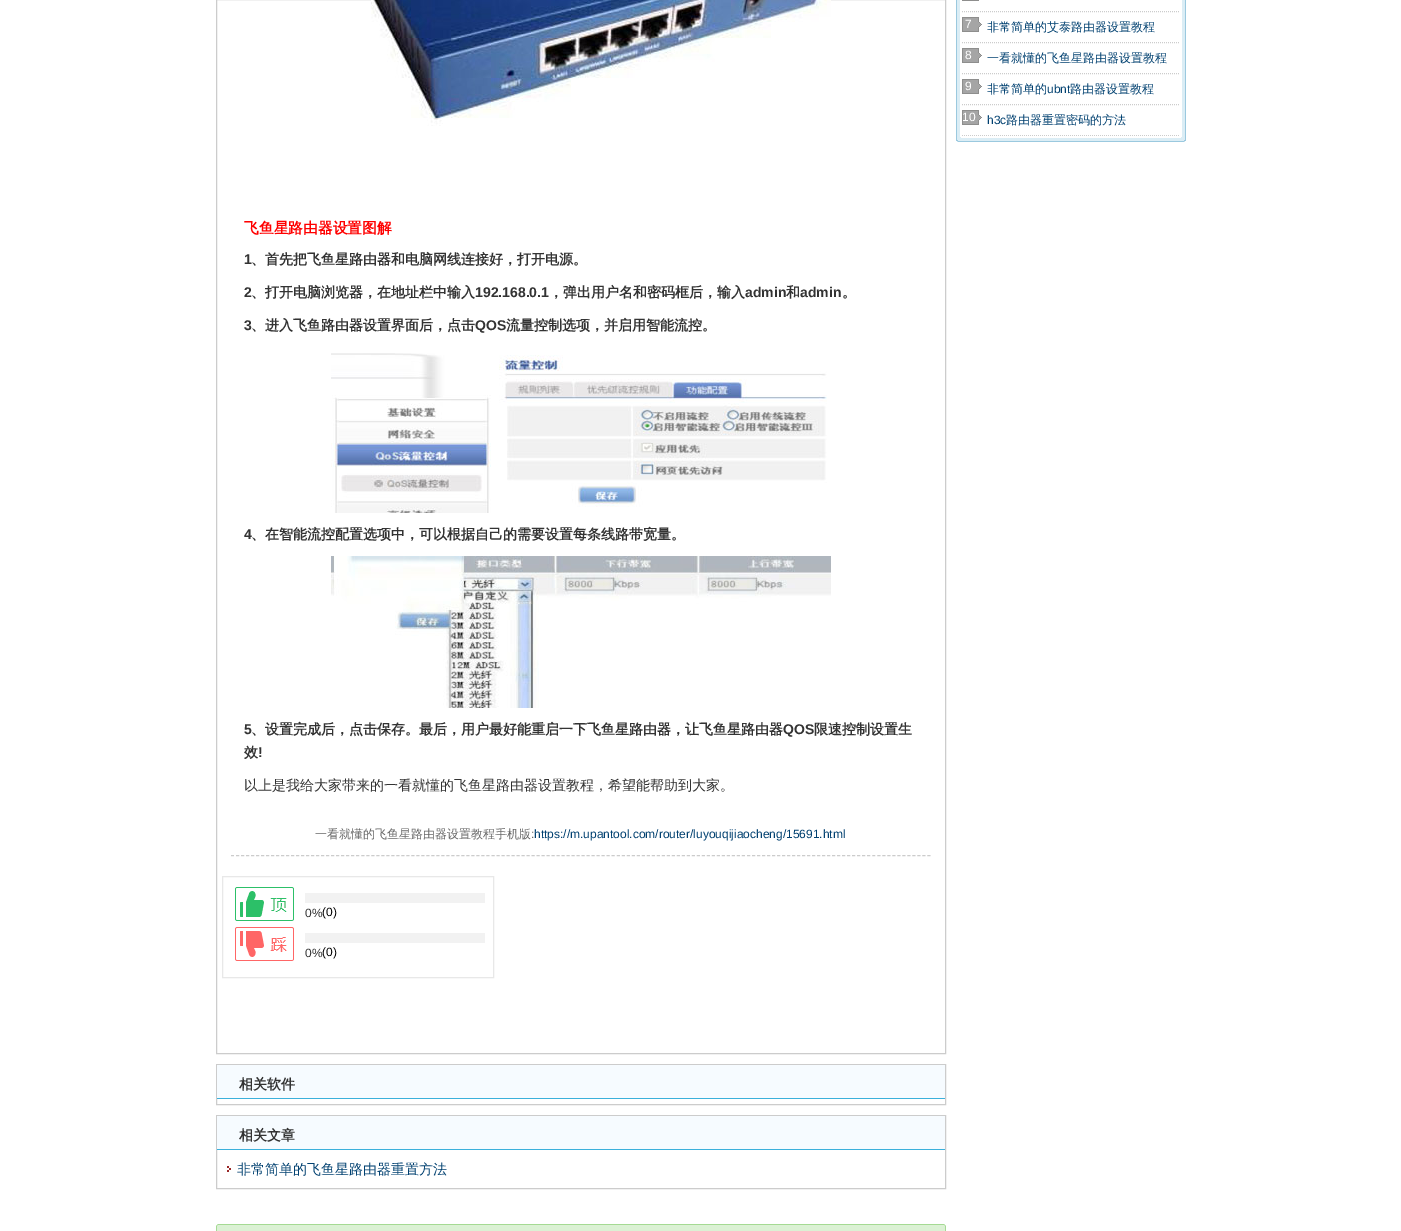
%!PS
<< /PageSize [1401 1231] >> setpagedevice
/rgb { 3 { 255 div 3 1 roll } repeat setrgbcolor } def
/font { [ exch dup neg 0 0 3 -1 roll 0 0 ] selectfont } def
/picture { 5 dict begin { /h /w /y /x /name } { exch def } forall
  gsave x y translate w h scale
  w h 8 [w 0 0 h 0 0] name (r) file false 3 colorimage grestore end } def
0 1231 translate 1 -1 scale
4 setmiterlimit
255 255 255 rgb
0 0 1401 1231 rectfill
[
  [957 0 228 140 219 237 245]
  [1185 0 1 140 155 201 223]
  [956 0 1 140 155 201 223]
  [960 0 222 136 255 255 255]
] { aload pop rgb rectfill } forall
204 204 204 rgb
[1 1] 0 setdash
962 11.5 moveto 1180 11.5 lineto stroke
142 142 141 rgb
962 0 17 1 rectfill
204 204 204 rgb
962 42.5 moveto 1180 42.5 lineto stroke
(img/1.rgb) 962 17 20 15 picture
962 73.5 moveto 1180 73.5 lineto stroke
(img/1.rgb) 962 48 20 15 picture
962 104.5 moveto 1180 104.5 lineto stroke
(img/1.rgb) 962 79 20 15 picture
962 135.5 moveto 1180 135.5 lineto stroke
(img/1.rgb) 962 110 20 15 picture
[
  [960 136 222 1 255 255 255]
  [961 137 220 1 255 255 255]
  [958 140 226 1 219 237 245]
  [1184 140 2 1 155 201 223]
  [956 140 2 1 155 201 223]
  [958 141 226 1 155 201 223]
  [1184 141 1 1 193 222 236]
  [957 141 1 1 193 222 236]
] { aload pop rgb rectfill } forall
204 204 204 rgb
[] 0 setdash
216.5 -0.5 729 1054 rectstroke
(img/2.rgb) 371 0 460 126 picture
(img/3.rgb) 331 353 496 160 picture
(img/4.rgb) 331 556 500 152 picture
[3 2.01] 0 setdash
231 855.5 moveto 931 855.5 lineto stroke
232 232 232 rgb
[] 0 setdash
222.5 876.5 271 101 rectstroke
(img/5.rgb) 235 887 59 34 picture
242 242 242 rgb
305 893 180 10 rectfill
(img/6.rgb) 235 927 59 34 picture
305 933 180 10 rectfill
204 204 204 rgb
216.5 1064.5 729 40 rectstroke
246 251 255 rgb
217 1065 728 33 rectfill
59 176 219 rgb
217 1098 728 1 rectfill
204 204 204 rgb
216.5 1115.5 729 73 rectstroke
246 251 255 rgb
217 1116 728 33 rectfill
59 176 219 rgb
217 1149 728 1 rectfill
(img/7.rgb) 227 1166 4 6 picture
[
  [218 1224 726 1 165 218 148]
  [944 1224 1 1 196 231 185]
  [217 1224 1 1 196 231 185]
  [218 1225 726 1 219 241 212]
  [944 1225 2 1 196 231 185]
  [216 1225 2 1 196 231 185]
  [217 1226 728 5 219 241 212]
  [945 1226 1 5 165 218 148]
  [216 1226 1 5 165 218 148]
] { aload pop rgb rectfill } forall
/LiberationSans-Regular 12 font
255 255 255 rgb
965 28 moveto (7) show
/WenQuanYiZenHei-Medium 12 font
0 64 112 rgb
987 31 moveto (非常简单的艾泰路由器设置教程) show
/LiberationSans-Regular 12 font
255 255 255 rgb
965 59 moveto (8) show
/WenQuanYiZenHei-Medium 12 font
0 64 112 rgb
987 62 moveto (一看就懂的飞鱼星路由器设置教程) show
/LiberationSans-Regular 12 font
255 255 255 rgb
965 90 moveto (9) show
/WenQuanYiZenHei-Medium 12 font
0 64 112 rgb
987 93 moveto (非常简单的) show
/LiberationSans-Regular 12 font
1047 93 moveto (ubnt) show
/WenQuanYiZenHei-Medium 12 font
1070 93 moveto (路由器设置教程) show
/LiberationSans-Regular 12 font
255 255 255 rgb
962 121 moveto (10) show
0 64 112 rgb
987 124 moveto (h3c) show
/WenQuanYiZenHei-Medium 12 font
1006 124 moveto (路由器重置密码的方法) show
/WenQuanYiZenHei-Bold 14.75 font
255 0 0 rgb
244 233 moveto (飞鱼星路由器设置图解) show
/LiberationSans-Bold 14 font
51 51 51 rgb
244 264 moveto (1) show
/WenQuanYiZenHei-Bold 14 font
251 264 moveto (、首先把飞鱼星路由器和电脑网线连接好，打开电源。) show
/LiberationSans-Bold 14 font
244 297 moveto (2) show
/WenQuanYiZenHei-Bold 14 font
251 297 moveto (、打开电脑浏览器，在地址栏中输入) show
/LiberationSans-Bold 14 font
475 297 moveto (192.168.0.1) show
/WenQuanYiZenHei-Bold 14 font
549 297 moveto (，弹出用户名和密码框后，输入) show
/LiberationSans-Bold 14 font
745 297 moveto (admin) show
/WenQuanYiZenHei-Bold 14 font
786 297 moveto (和) show
/LiberationSans-Bold 14 font
800 297 moveto (admin) show
/WenQuanYiZenHei-Bold 14 font
842 297 moveto (。) show
/LiberationSans-Bold 14 font
244 330 moveto (3) show
/WenQuanYiZenHei-Bold 14 font
251 330 moveto (、进入飞鱼路由器设置界面后，点击) show
/LiberationSans-Bold 14 font
475 330 moveto (QOS) show
/WenQuanYiZenHei-Bold 14 font
506 330 moveto (流量控制选项，并启用智能流控。) show
/LiberationSans-Bold 14 font
244 539 moveto (4) show
/WenQuanYiZenHei-Bold 14 font
251 539 moveto (、在智能流控配置选项中，可以根据自己的需要设置每条线路带宽量。) show
/LiberationSans-Bold 14 font
244 734 moveto (5) show
/WenQuanYiZenHei-Bold 14 font
251 734 moveto (、设置完成后，点击保存。最后，用户最好能重启一下飞鱼星路由器，让飞鱼星路由器) show
/LiberationSans-Bold 14 font
783 734 moveto (QOS) show
/WenQuanYiZenHei-Bold 14 font
814 734 moveto (限速控制设置生) show
244 757 moveto (效) show
/LiberationSans-Bold 14 font
258 757 moveto (!) show
/WenQuanYiZenHei-Medium 14 font
244 790 moveto (以上是我给大家带来的一看就懂的飞鱼星路由器设置教程，希望能帮助到大家。) show
/WenQuanYiZenHei-Medium 12 font
102 102 102 rgb
315 838 moveto (一看就懂的飞鱼星路由器设置教程手机版) show
/LiberationSans-Regular 12 font
531 838 moveto (:) show
0 64 112 rgb
534 838 moveto (https://m.upantool.com/router/luyouqijiaocheng/15691.html) show
51 51 51 rgb
305 917 moveto (0%) show
0 0 0 rgb
322 916 moveto (\(0\)) show
51 51 51 rgb
305 957 moveto (0%) show
0 0 0 rgb
322 956 moveto (\(0\)) show
/WenQuanYiZenHei-Bold 14 font
51 51 51 rgb
239 1089 moveto (相关软件) show
239 1140 moveto (相关文章) show
/WenQuanYiZenHei-Medium 14 font
0 64 112 rgb
237 1174 moveto (非常简单的飞鱼星路由器重置方法) show
showpage
